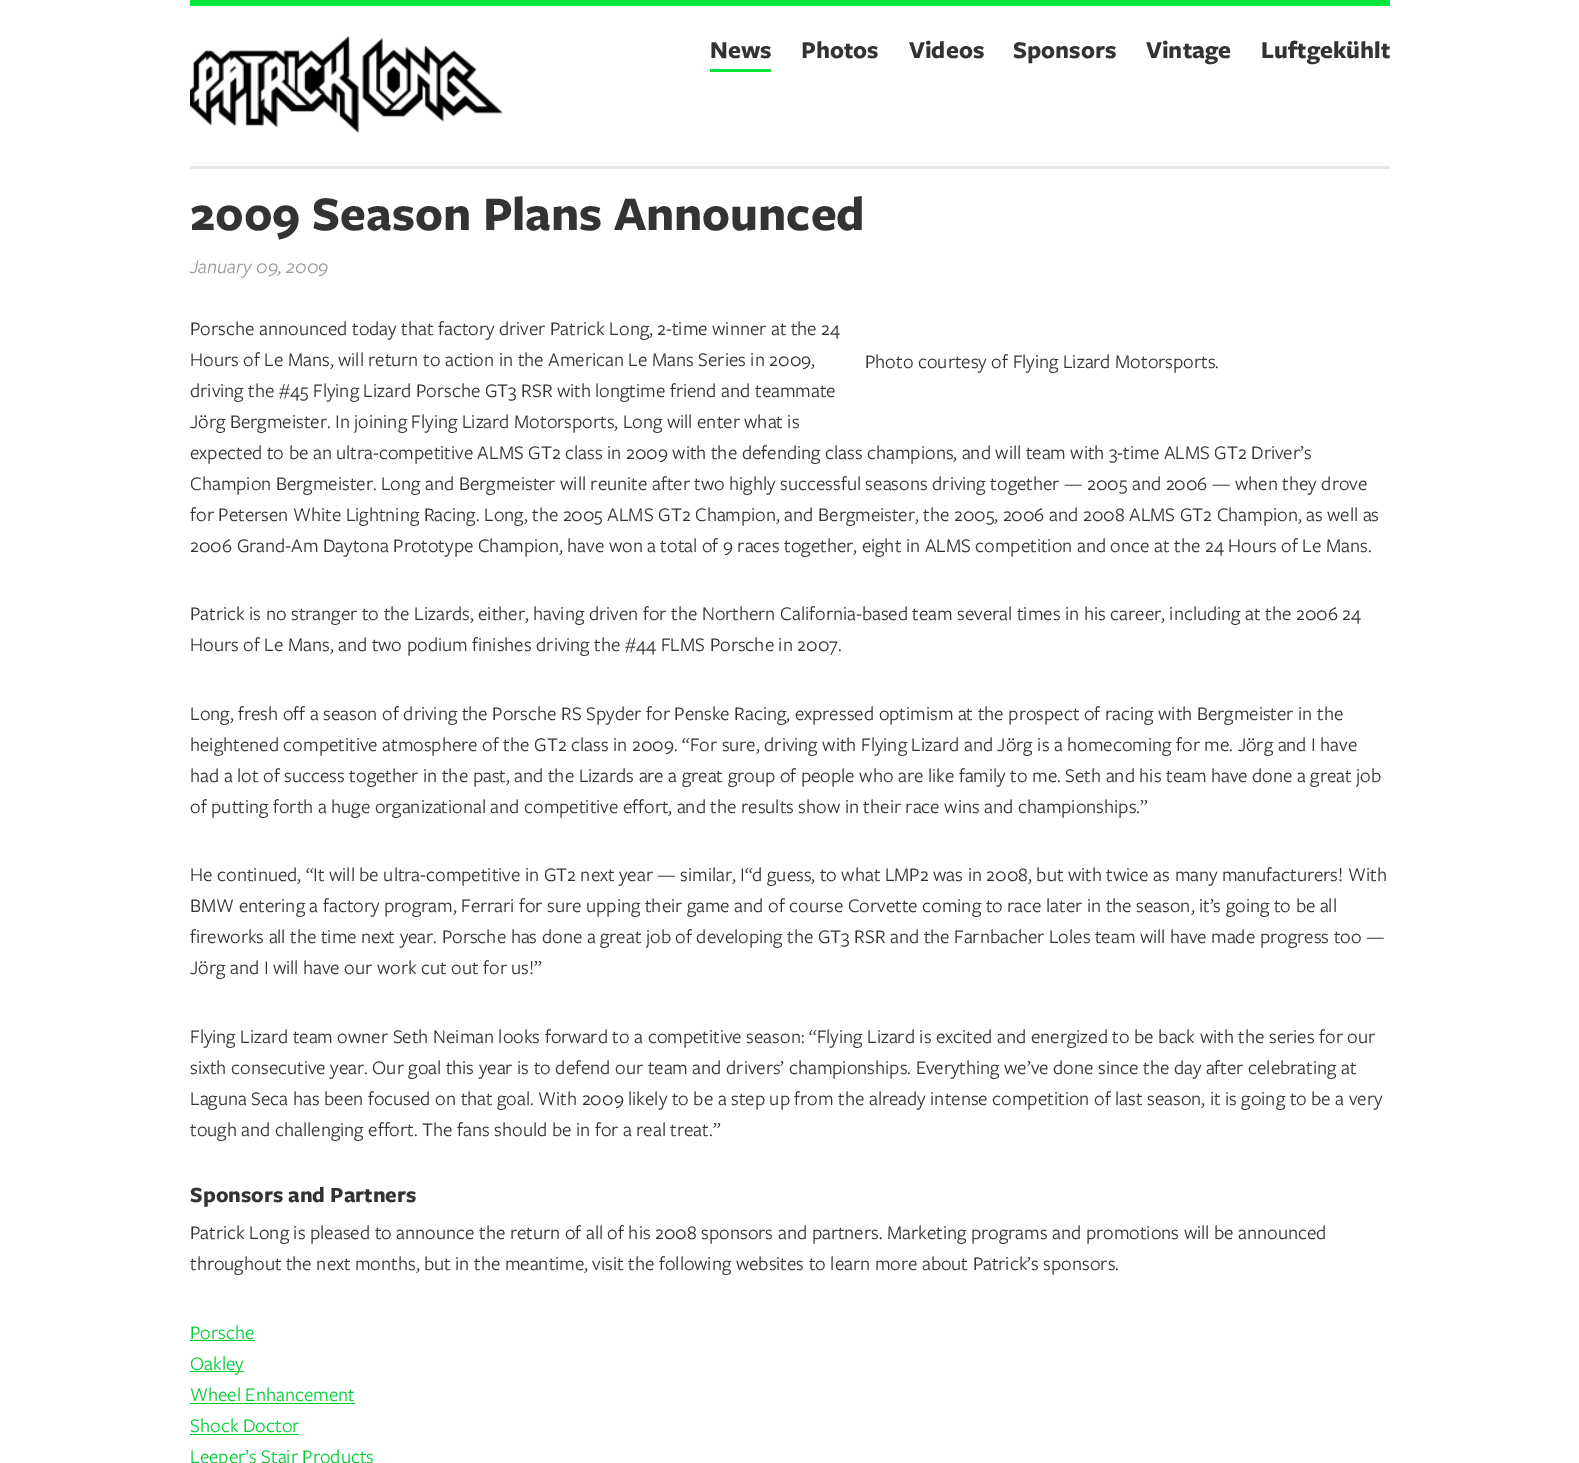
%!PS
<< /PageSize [1579 1463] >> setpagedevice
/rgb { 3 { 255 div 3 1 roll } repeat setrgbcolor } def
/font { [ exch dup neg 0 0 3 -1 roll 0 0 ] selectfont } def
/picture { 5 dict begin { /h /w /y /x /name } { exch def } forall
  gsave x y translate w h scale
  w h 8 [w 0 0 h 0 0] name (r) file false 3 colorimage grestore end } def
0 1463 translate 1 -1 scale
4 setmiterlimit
255 255 255 rgb
0 0 1579 1463 rectfill
0 230 60 rgb
190 0 1200 6 rectfill
(img/1.rgb) 190 36 313 97 picture
[
  [710 69 61 3 0 230 60]
  [190 166 1200 3 230 230 230]
  [190 1340 65 1 0 205 53]
  [190 1371 54 1 0 205 53]
  [190 1403 165 1 0 205 53]
  [190 1434 109 1 0 205 53]
] { aload pop rgb rectfill } forall
/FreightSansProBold-Bold 25 font
51 51 51 rgb
[
  [(News) 710 58]
  [(Photos) 801 58]
  [(Videos) 909 58]
  [(Sponsors) 1013 58]
  [(Vintage) 1146 58]
  [(Luftgekühlt) 1261 58]
] { aload pop moveto show } forall
/FreightSansProBold-Bold 50 font
190 230 moveto (2009 Season Plans Announced) show
/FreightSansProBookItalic-Italic 20 font
153 153 153 rgb
190 273 moveto (January 09, 2009) show
/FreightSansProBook-Regular 20 font
51 51 51 rgb
[
  [(Porsche announced today that factory driver Patrick Long, 2-time winner at the 24) 190 335]
  [(Hours of Le Mans, will return to action in the American Le Mans Series in 2009,) 190 366]
  [(driving the #45 Flying Lizard Porsche GT3 RSR with longtime friend and teammate) 190 397]
  [(Jörg Bergmeister. In joining Flying Lizard Motorsports, Long will enter what is) 190 428]
  [(expected to be an ultra-competitive ALMS GT2 class in 2009 with the defending class champions, and will team with 3-time ALMS GT2 Driver’s) 190 459]
  [(Champion Bergmeister. Long and Bergmeister will reunite after two highly successful seasons driving together — 2005 and 2006 — when they drove) 190 490]
  [(for Petersen White Lightning Racing. Long, the 2005 ALMS GT2 Champion, and Bergmeister, the 2005, 2006 and 2008 ALMS GT2 Champion, as well as) 190 521]
  [(2006 Grand-Am Daytona Prototype Champion, have won a total of 9 races together, eight in ALMS competition and once at the 24 Hours of Le Mans.) 190 552]
  [(Photo courtesy of Flying Lizard Motorsports.) 865 368]
  [(Patrick is no stranger to the Lizards, either, having driven for the Northern California-based team several times in his career, including at the 2006 24) 190 620]
  [(Hours of Le Mans, and two podium finishes driving the #44 FLMS Porsche in 2007.) 190 651]
  [(Long, fresh off a season of driving the Porsche RS Spyder for Penske Racing, expressed optimism at the prospect of racing with Bergmeister in the) 190 720]
  [(heightened competitive atmosphere of the GT2 class in 2009. “For sure, driving with Flying Lizard and Jörg is a homecoming for me. Jörg and I have) 190 751]
  [(had a lot of success together in the past, and the Lizards are a great group of people who are like family to me. Seth and his team have done a great job) 190 782]
  [(of putting forth a huge organizational and competitive effort, and the results show in their race wins and championships.”) 190 813]
  [(He continued, “It will be ultra-competitive in GT2 next year — similar, I“d guess, to what LMP2 was in 2008, but with twice as many manufacturers! With) 190 881]
  [(BMW entering a factory program, Ferrari for sure upping their game and of course Corvette coming to race later in the season, it’s going to be all) 190 912]
  [(fireworks all the time next year. Porsche has done a great job of developing the GT3 RSR and the Farnbacher Loles team will have made progress too —) 190 943]
  [(Jörg and I will have our work cut out for us!”) 190 974]
  [(Flying Lizard team owner Seth Neiman looks forward to a competitive season: “Flying Lizard is excited and energized to be back with the series for our) 190 1043]
  [(sixth consecutive year. Our goal this year is to defend our team and drivers’ championships. Everything we’ve done since the day after celebrating at) 190 1074]
  [(Laguna Seca has been focused on that goal. With 2009 likely to be a step up from the already intense competition of last season, it is going to be a very) 190 1105]
  [(tough and challenging effort. The fans should be in for a real treat.”) 190 1136]
] { aload pop moveto show } forall
/FreightSansProBold-Bold 22.5 font
190 1202 moveto (Sponsors and Partners) show
/FreightSansProBook-Regular 20 font
190 1239 moveto (Patrick Long is pleased to announce the return of all of his 2008 sponsors and partners. Marketing programs and promotions will be announced) show
190 1270 moveto (throughout the next months, but in the meantime, visit the following websites to learn more about Patrick’s sponsors.) show
0 205 53 rgb
[
  [(Porsche) 190 1339]
  [(Oakley) 190 1370]
  [(Wheel Enhancement) 190 1401]
  [(Shock Doctor) 190 1432]
  [(Leeper’s Stair Products) 190 1463]
] { aload pop moveto show } forall
showpage
